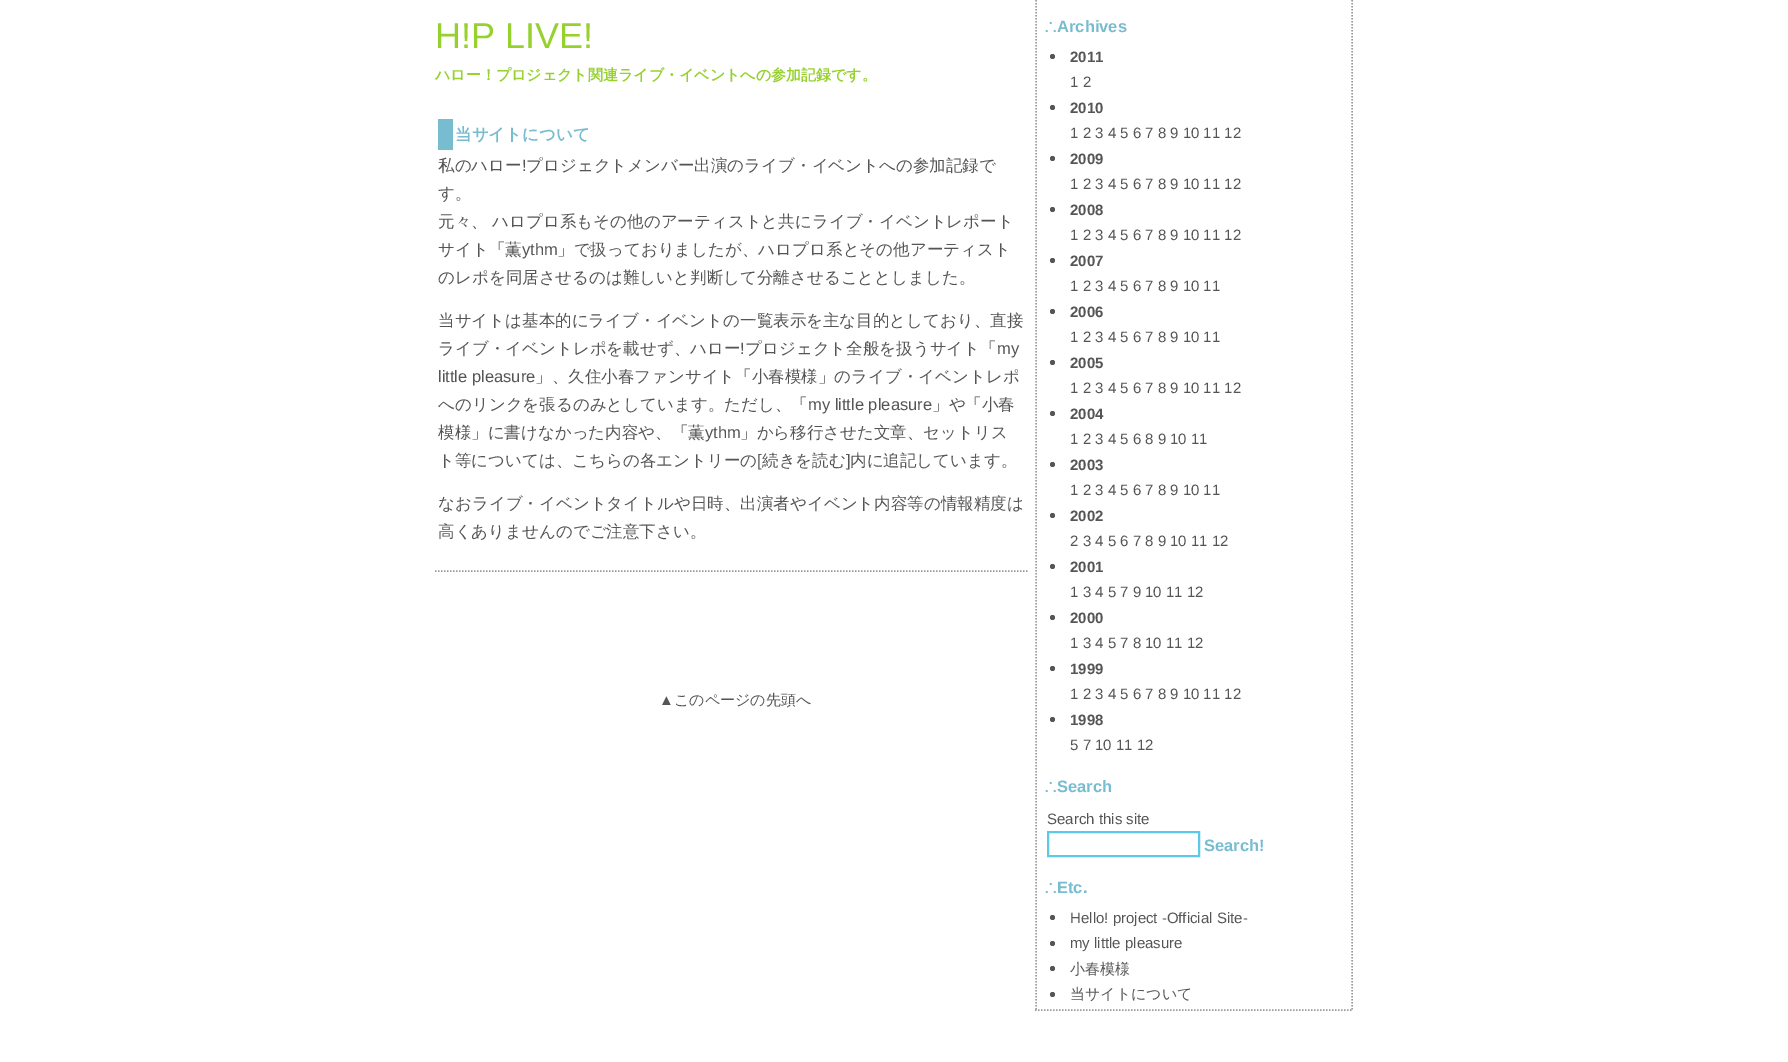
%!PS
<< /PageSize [1788 1062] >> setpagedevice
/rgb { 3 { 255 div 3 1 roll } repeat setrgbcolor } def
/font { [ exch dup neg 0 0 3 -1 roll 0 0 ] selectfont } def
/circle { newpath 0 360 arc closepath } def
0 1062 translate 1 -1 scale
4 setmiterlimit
255 255 255 rgb
0 0 1788 1062 rectfill
120 188 208 rgb
438 119 15 31 rectfill
153 153 153 rgb
1.5 setlinewidth
[1.5 1.5] 0 setdash
435 571 moveto 1027.5 571 lineto stroke
1352 0 moveto 1352 1011 lineto stroke
1035 1010 moveto 1353 1010 lineto stroke
1036 0 moveto 1036 1011 lineto stroke
85 85 85 rgb
1052.5 56.5 2.5 circle fill
1052.5 107.5 2.5 circle fill
1052.5 158.5 2.5 circle fill
1052.5 209.5 2.5 circle fill
1052.5 260.5 2.5 circle fill
1052.5 311.5 2.5 circle fill
1052.5 362.5 2.5 circle fill
1052.5 413.5 2.5 circle fill
1052.5 464.5 2.5 circle fill
1052.5 515.5 2.5 circle fill
1052.5 566.5 2.5 circle fill
1052.5 617.5 2.5 circle fill
1052.5 668.5 2.5 circle fill
1052.5 719.5 2.5 circle fill
92 201 232 rgb
2 setlinewidth
[] 0 setdash
1048 832 151 24 rectstroke
85 85 85 rgb
1052.5 917.5 2.5 circle fill
1052.5 943.5 2.5 circle fill
1052.5 968.5 2.5 circle fill
1052.5 994.5 2.5 circle fill
/LiberationSans-Regular 36 font
150 209 46 rgb
435 48 moveto (H!P LIVE!) show
/WenQuanYiZenHei-Bold 15 font
435 80 moveto (ハロー！プロジェクト関連ライブ・イベントへの参加記録です。) show
/WenQuanYiZenHei-Bold 16.5 font
120 188 208 rgb
455 140 moveto (当サイトについて) show
/WenQuanYiZenHei-Medium 16.5 font
85 85 85 rgb
438 171 moveto (私のハロー) show
/LiberationSans-Regular 16.5 font
522 171 moveto (!) show
/WenQuanYiZenHei-Medium 16.5 font
[
  [(プロジェクトメンバー出演のライブ・イベントへの参加記録で) 526 171]
  [(す。) 438 199]
  [(元々、 ハロプロ系もその他のアーティストと共にライブ・イベントレポート) 438 227]
  [(サイト「薫) 438 255]
] { aload pop moveto show } forall
/LiberationSans-Regular 16.5 font
522 255 moveto (ythm) show
/WenQuanYiZenHei-Medium 16.5 font
[
  [(」で扱っておりましたが、ハロプロ系とその他アーティスト) 557 255]
  [(のレポを同居させるのは難しいと判断して分離させることとしました。) 438 283]
  [(当サイトは基本的にライブ・イベントの一覧表示を主な目的としており、直接) 438 326]
  [(ライブ・イベントレポを載せず、ハロー) 438 354]
] { aload pop moveto show } forall
/LiberationSans-Regular 16.5 font
740 354 moveto (!) show
/WenQuanYiZenHei-Medium 16.5 font
745 354 moveto (プロジェクト全般を扱うサイト「) show
/LiberationSans-Regular 16.5 font
997 354 moveto (my) show
438 382 moveto (little pleasure) show
/WenQuanYiZenHei-Medium 16.5 font
535 382 moveto (」、久住小春ファンサイト「小春模様」のライブ・イベントレポ) show
438 410 moveto (へのリンクを張るのみとしています。ただし、「) show
/LiberationSans-Regular 16.5 font
808 410 moveto (my little pleasure) show
/WenQuanYiZenHei-Medium 16.5 font
932 410 moveto (」や「小春) show
438 438 moveto (模様」に書けなかった内容や、「薫) show
/LiberationSans-Regular 16.5 font
705 438 moveto (ythm) show
/WenQuanYiZenHei-Medium 16.5 font
740 438 moveto (」から移行させた文章、セットリス) show
438 466 moveto (ト等については、こちらの各エントリーの) show
/LiberationSans-Regular 16.5 font
757 466 moveto ([) show
/WenQuanYiZenHei-Medium 16.5 font
762 466 moveto (続きを読む) show
/LiberationSans-Regular 16.5 font
846 466 moveto (]) show
/WenQuanYiZenHei-Medium 16.5 font
[
  [(内に追記しています。) 850 466]
  [(なおライブ・イベントタイトルや日時、出演者やイベント内容等の情報精度は) 438 509]
  [(高くありませんのでご注意下さい。) 438 537]
] { aload pop moveto show } forall
/LiberationSans-Regular 15 font
659 705 moveto (▲) show
/WenQuanYiZenHei-Medium 15 font
674 705 moveto (このページの先頭へ) show
/WenQuanYiZenHei-Bold 16.5 font
120 188 208 rgb
1044 32 moveto (∴) show
/LiberationSans-Bold 16.5 font
1057 32 moveto (Archives) show
/LiberationSans-Bold 15 font
85 85 85 rgb
1070 62 moveto (2011) show
/LiberationSans-Regular 15 font
1070 87 moveto (1 2) show
/LiberationSans-Bold 15 font
1070 113 moveto (2010) show
/LiberationSans-Regular 15 font
1070 138 moveto (1 2 3 4 5 6 7 8 9 10 11 12) show
/LiberationSans-Bold 15 font
1070 164 moveto (2009) show
/LiberationSans-Regular 15 font
1070 189 moveto (1 2 3 4 5 6 7 8 9 10 11 12) show
/LiberationSans-Bold 15 font
1070 215 moveto (2008) show
/LiberationSans-Regular 15 font
1070 240 moveto (1 2 3 4 5 6 7 8 9 10 11 12) show
/LiberationSans-Bold 15 font
1070 266 moveto (2007) show
/LiberationSans-Regular 15 font
1070 291 moveto (1 2 3 4 5 6 7 8 9 10 11) show
/LiberationSans-Bold 15 font
1070 317 moveto (2006) show
/LiberationSans-Regular 15 font
1070 342 moveto (1 2 3 4 5 6 7 8 9 10 11) show
/LiberationSans-Bold 15 font
1070 368 moveto (2005) show
/LiberationSans-Regular 15 font
1070 393 moveto (1 2 3 4 5 6 7 8 9 10 11 12) show
/LiberationSans-Bold 15 font
1070 419 moveto (2004) show
/LiberationSans-Regular 15 font
1070 444 moveto (1 2 3 4 5 6 8 9 10 11) show
/LiberationSans-Bold 15 font
1070 470 moveto (2003) show
/LiberationSans-Regular 15 font
1070 495 moveto (1 2 3 4 5 6 7 8 9 10 11) show
/LiberationSans-Bold 15 font
1070 521 moveto (2002) show
/LiberationSans-Regular 15 font
1070 546 moveto (2 3 4 5 6 7 8 9 10 11 12) show
/LiberationSans-Bold 15 font
1070 572 moveto (2001) show
/LiberationSans-Regular 15 font
1070 597 moveto (1 3 4 5 7 9 10 11 12) show
/LiberationSans-Bold 15 font
1070 623 moveto (2000) show
/LiberationSans-Regular 15 font
1070 648 moveto (1 3 4 5 7 8 10 11 12) show
/LiberationSans-Bold 15 font
1070 674 moveto (1999) show
/LiberationSans-Regular 15 font
1070 699 moveto (1 2 3 4 5 6 7 8 9 10 11 12) show
/LiberationSans-Bold 15 font
1070 725 moveto (1998) show
/LiberationSans-Regular 15 font
1070 750 moveto (5 7 10 11 12) show
/WenQuanYiZenHei-Bold 16.5 font
120 188 208 rgb
1044 792 moveto (∴) show
/LiberationSans-Bold 16.5 font
1057 792 moveto (Search) show
/LiberationSans-Regular 15 font
85 85 85 rgb
1047 824 moveto (Search this site) show
/LiberationSans-Bold 16.5 font
120 188 208 rgb
1204 851 moveto (Search!) show
/WenQuanYiZenHei-Bold 16.5 font
1044 893 moveto (∴) show
/LiberationSans-Bold 16.5 font
1057 893 moveto (Etc.) show
/LiberationSans-Regular 15 font
85 85 85 rgb
1070 923 moveto (Hello! project -Official Site-) show
1070 948 moveto (my little pleasure) show
/WenQuanYiZenHei-Medium 15 font
1070 974 moveto (小春模様) show
1070 999 moveto (当サイトについて) show
showpage
